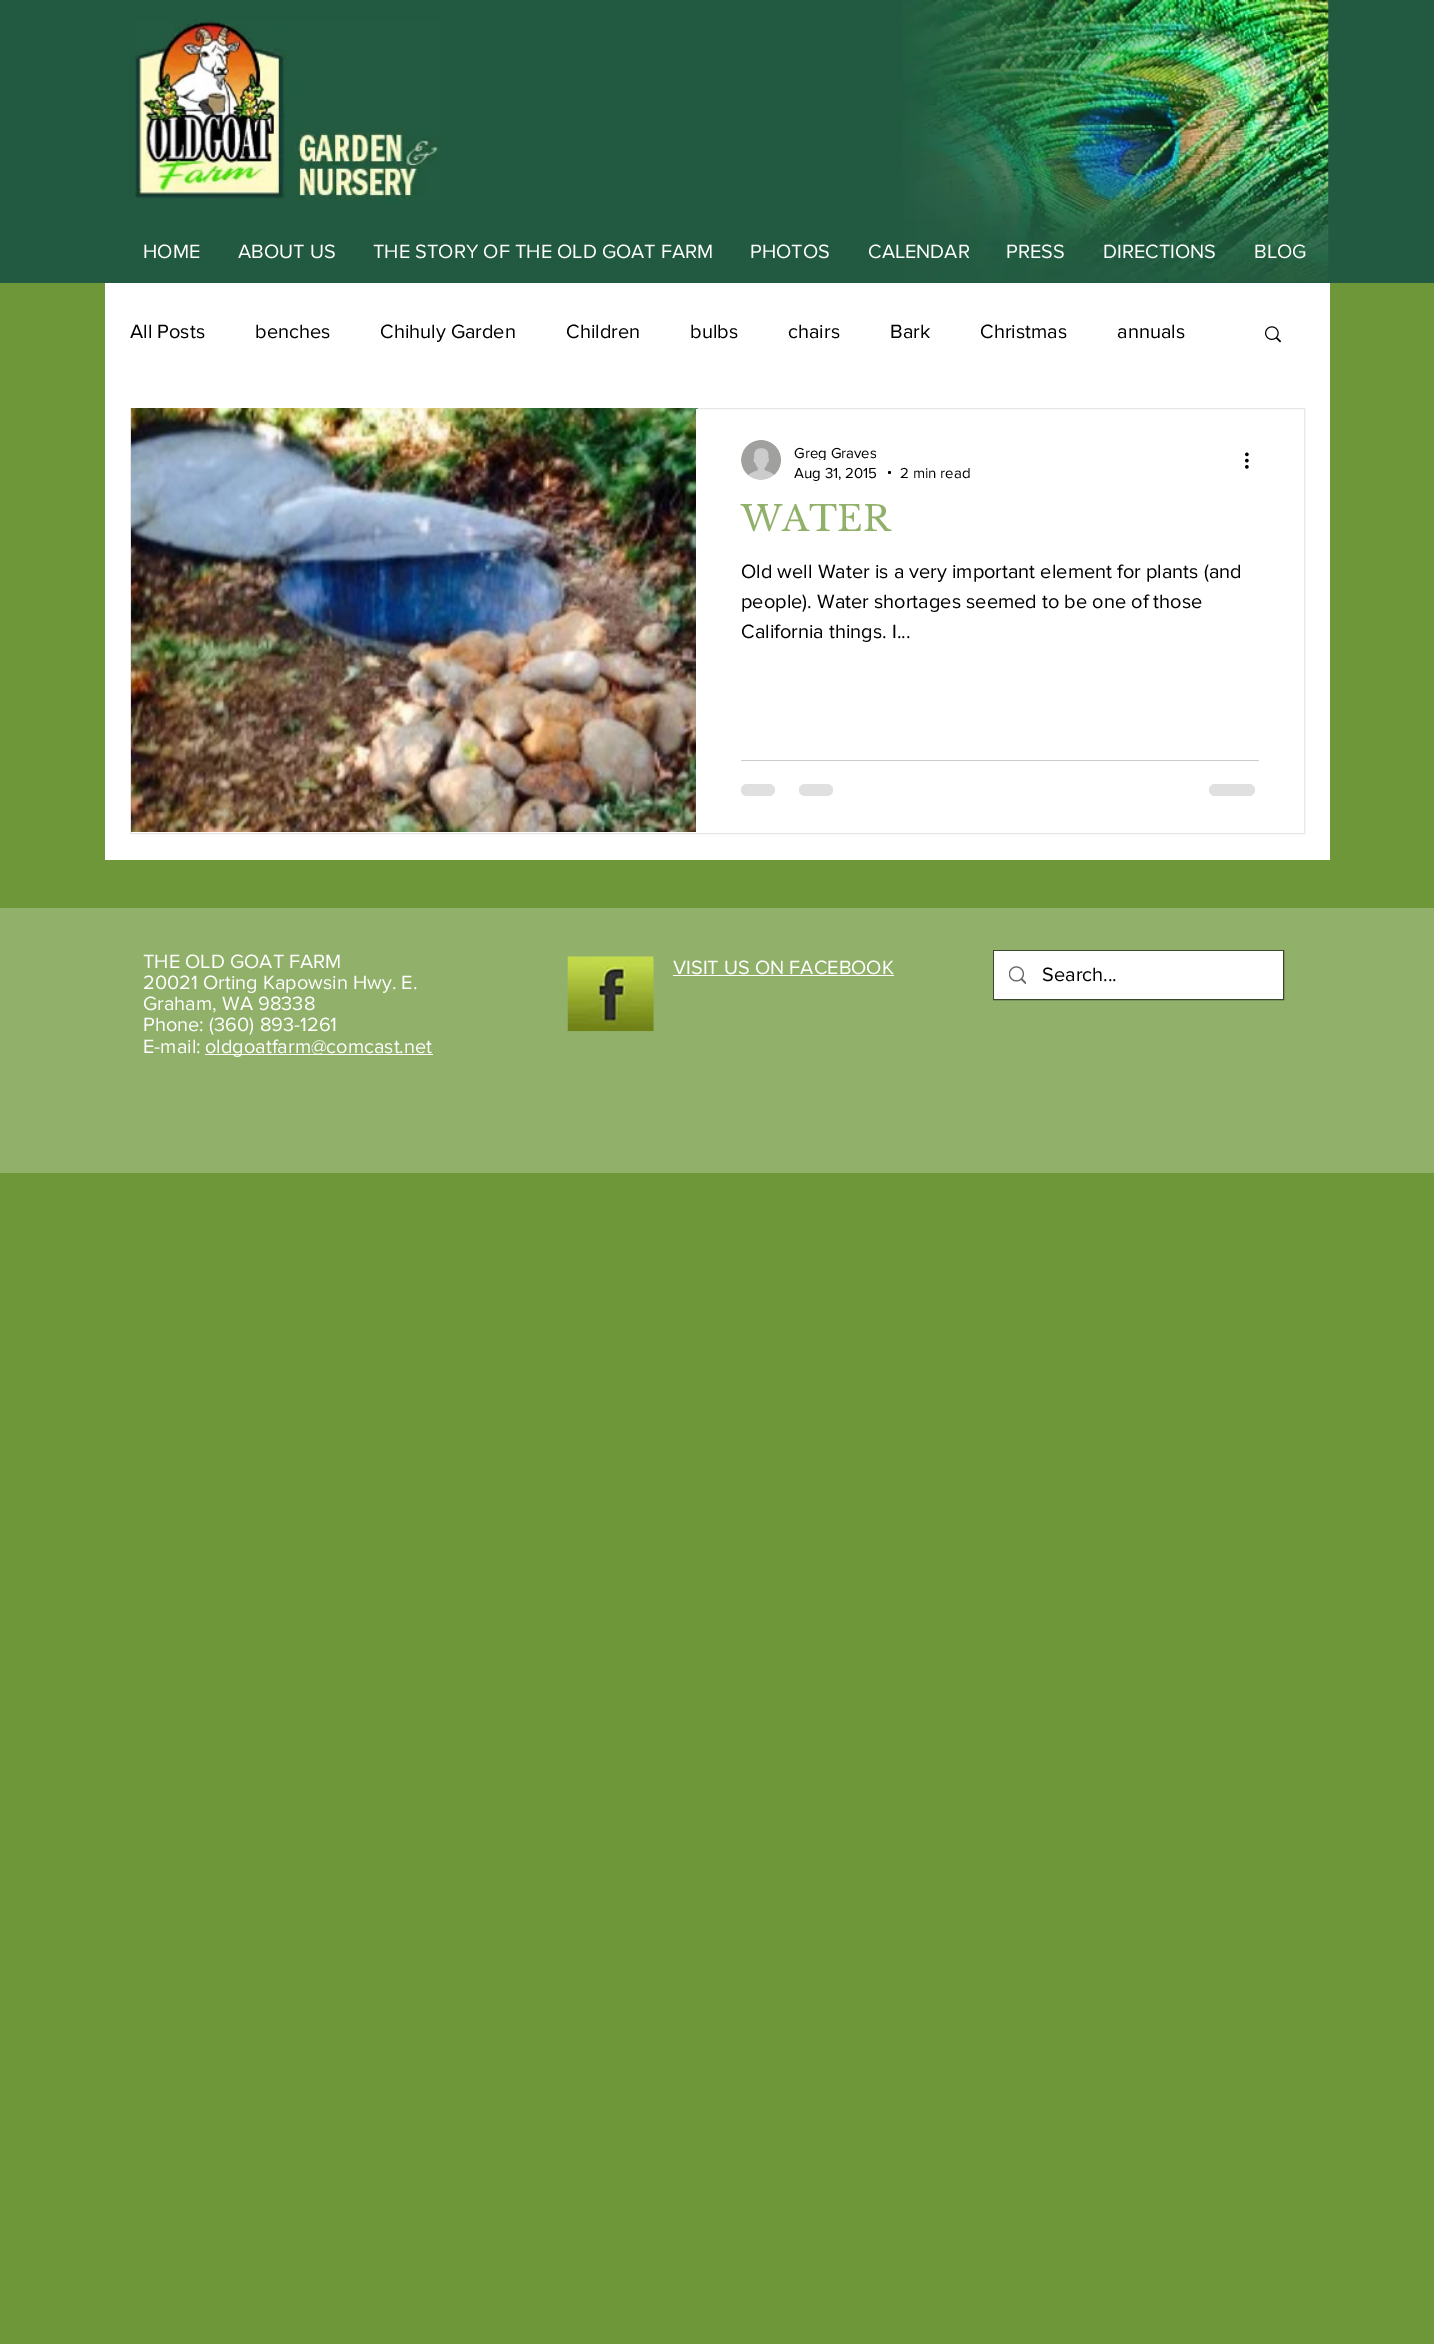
%!PS
<< /PageSize [1434 2344] >> setpagedevice
/rgb { 3 { 255 div 3 1 roll } repeat setrgbcolor } def
/font { [ exch dup neg 0 0 3 -1 roll 0 0 ] selectfont } def
/circle { newpath 0 360 arc closepath } def
/roundrect { 5 dict begin { /r /h /w /y /x } { exch def } forall
  x r add y moveto x w add y 2 copy h add r arct x w add y h add x 1 index r arct
  x y h add x y r arct x y 2 copy exch w add exch r arct closepath end } def
/picture { 5 dict begin { /h /w /y /x /name } { exch def } forall
  gsave x y translate w h scale
  w h 8 [w 0 0 h 0 0] name (r) file false 3 colorimage grestore end } def
0 2344 translate 1 -1 scale
4 setmiterlimit
110 151 57 rgb
0 0 1434 2344 rectfill
34 90 65 rgb
0 0 1434 283 rectfill
(img/1.rgb) 135 20 305 181 picture
(img/2.rgb) 903 0 426 282 picture
255 255 255 rgb
105 283 1225 577 rectfill
(img/3.rgb) 1265 326 17 17 picture
232 230 230 rgb
130.5 408.5 1174 425 rectstroke
(img/5.rgb) 697 408 1 1 picture
(img/4.rgb) 131 408 567 424 picture
255 255 255 rgb
696 409 2 423 rectfill
(img/6.rgb) 741 440 40 40 picture
0 0 0 rgb
889.5 472.5 1.5 circle fill
(img/7.rgb) 1245 452 4 17 picture
204 204 204 rgb
741 760 518 1 rectfill
224 224 224 rgb
741 784 34 12 6 roundrect fill
799 784 34 12 6 roundrect fill
1209 784 46 12 6 roundrect fill
145 177 107 rgb
0 908 1434 265 rectfill
255 255 255 rgb
205 1054 228 1 rectfill
(img/8.rgb) 567 956 87 76 picture
673 975 221 1 rectfill
58 71 43 rgb
993.5 950.5 290 49 rectstroke
255 255 255 rgb
994 951 289 48 rectfill
(img/9.rgb) 1009 966 17 18 picture
/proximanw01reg-Regular 20 font
[
  [(HOME) 143 258]
  [(ABOUT US) 238 258]
  [(THE STORY OF THE OLD GOAT FARM) 373 258]
  [(PHOTOS) 750 258]
  [(CALENDAR) 868 258]
  [(PRESS) 1006 258]
  [(DIRECTIONS) 1103 258]
  [(BLOG) 1254 258]
] { aload pop moveto show } forall
0 0 0 rgb
[
  [(All Posts) 130 338]
  [(benches) 255 338]
  [(Chihuly Garden) 380 338]
  [(Children) 566 338]
  [(bulbs) 690 338]
  [(chairs) 788 338]
  [(Bark) 890 338]
  [(Christmas) 980 338]
  [(annuals) 1117 338]
] { aload pop moveto show } forall
gsave
794 444 82 16 rectclip
/proximanw01reg-Regular 15 font
794 458 moveto (Greg Graves) show
grestore
/proximanw01reg-Regular 15 font
794 478 moveto (Aug 31, 2015) show
900 478 moveto (2 min read) show
/LibreBaskerville-Regular 35 font
145 177 107 rgb
741 531 moveto (WATER) show
/proximanw01reg-Regular 20 font
0 0 0 rgb
[
  [(Old well Water is a very important element for plants \(and) 741 578]
  [(people\). Water shortages seemed to be one of those) 741 608]
  [(California things. I...) 741 638]
] { aload pop moveto show } forall
255 255 255 rgb
[
  [(THE OLD GOAT FARM) 143 968]
  [(20021 Orting Kapowsin Hwy. E.) 143 989]
  [(Graham, WA 98338) 143 1010]
  [(Phone: \(360\) 893-1261) 143 1031]
  [(E-mail:) 143 1053]
  [(oldgoatfarm@comcast.net) 205 1053]
  [(VISIT US ON FACEBOOK) 673 974]
] { aload pop moveto show } forall
0 0 0 rgb
1042 981 moveto (Search...) show
showpage
